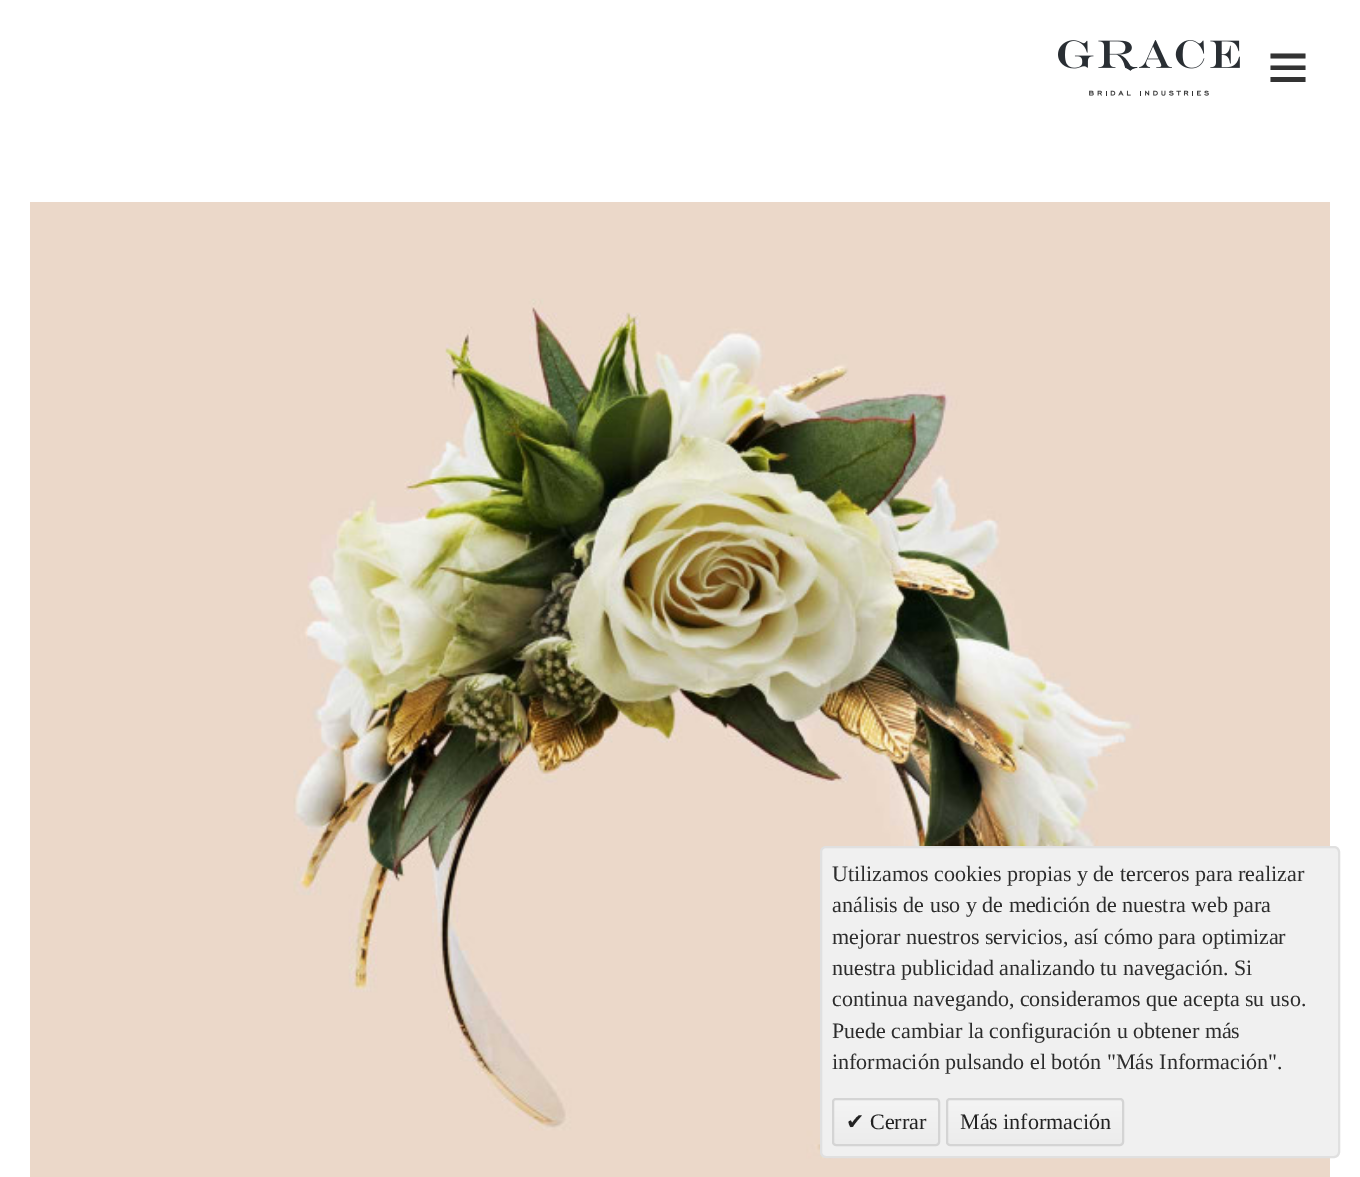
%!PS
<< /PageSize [1360 1177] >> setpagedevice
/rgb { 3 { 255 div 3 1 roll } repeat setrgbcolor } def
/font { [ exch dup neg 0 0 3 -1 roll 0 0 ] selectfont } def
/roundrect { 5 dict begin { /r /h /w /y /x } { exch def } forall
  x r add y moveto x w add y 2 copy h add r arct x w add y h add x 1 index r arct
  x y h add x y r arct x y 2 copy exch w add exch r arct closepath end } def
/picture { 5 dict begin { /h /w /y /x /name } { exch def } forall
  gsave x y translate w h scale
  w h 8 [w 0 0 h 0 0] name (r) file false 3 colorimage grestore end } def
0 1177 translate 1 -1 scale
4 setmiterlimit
255 255 255 rgb
0 0 1360 1177 rectfill
(img/1.rgb) 1058 40 182 56 picture
51 51 51 rgb
1305.5 53.5 moveto 1305.5 58.5 lineto 1270.5 58.5 lineto 1270.5 53.5 lineto closepath 1270.5 70 moveto 1305.5 70 lineto 1305.5 65.5 lineto 1270.5 65.5 lineto closepath 1270.5 82 moveto 1305.5 82 lineto 1305.5 77 lineto 1270.5 77 lineto closepath fill
(img/2.rgb) 30 202 1300 975 picture
240 240 240 rgb
821 847 518 310 5 roundrect gsave fill grestore
224 224 224 rgb
2 setlinewidth
stroke
gsave
832 1098 108 48 4 roundrect clip newpath
gsave 832 1100 moveto 940 1100 lineto 940 1144 lineto 832 1144 lineto closepath clip newpath
<< /ShadingType 2 /ColorSpace /DeviceRGB /Coords [886 1100 886 1144] /Extend [true true] /Function << /FunctionType 2 /Domain [0 1] /C0 [0.957 0.957 0.957] /C1 [0.925 0.925 0.925] /N 1 >> >> shfill grestore
grestore
212 212 212 rgb
833 1099 106 46 3 roundrect stroke
gsave
946 1098 178 48 4 roundrect clip newpath
gsave 946 1100 moveto 1124 1100 lineto 1124 1144 lineto 946 1144 lineto closepath clip newpath
<< /ShadingType 2 /ColorSpace /DeviceRGB /Coords [1035 1100 1035 1144] /Extend [true true] /Function << /FunctionType 2 /Domain [0 1] /C0 [0.957 0.957 0.957] /C1 [0.925 0.925 0.925] /N 1 >> >> shfill grestore
grestore
947 1099 176 46 3 roundrect stroke
/LiberationSerif-Regular 22 font
44 44 44 rgb
[
  [(Utilizamos cookies propias y de terceros para realizar) 832 881]
  [(análisis de uso y de medición de nuestra web para) 832 912]
  [(mejorar nuestros servicios, así cómo para optimizar) 832 944]
  [(nuestra publicidad analizando tu navegación. Si) 832 975]
  [(continua navegando, consideramos que acepta su uso.) 832 1006]
  [(Puede cambiar la configuración u obtener más) 832 1038]
  [(información pulsando el botón "Más Información".) 832 1069]
] { aload pop moveto show } forall
/DejaVuSans-Regular 22 font
34 34 34 rgb
846 1129 moveto (✔) show
/LiberationSerif-Regular 22 font
870 1129 moveto (Cerrar) show
960 1129 moveto (Más información) show
showpage
